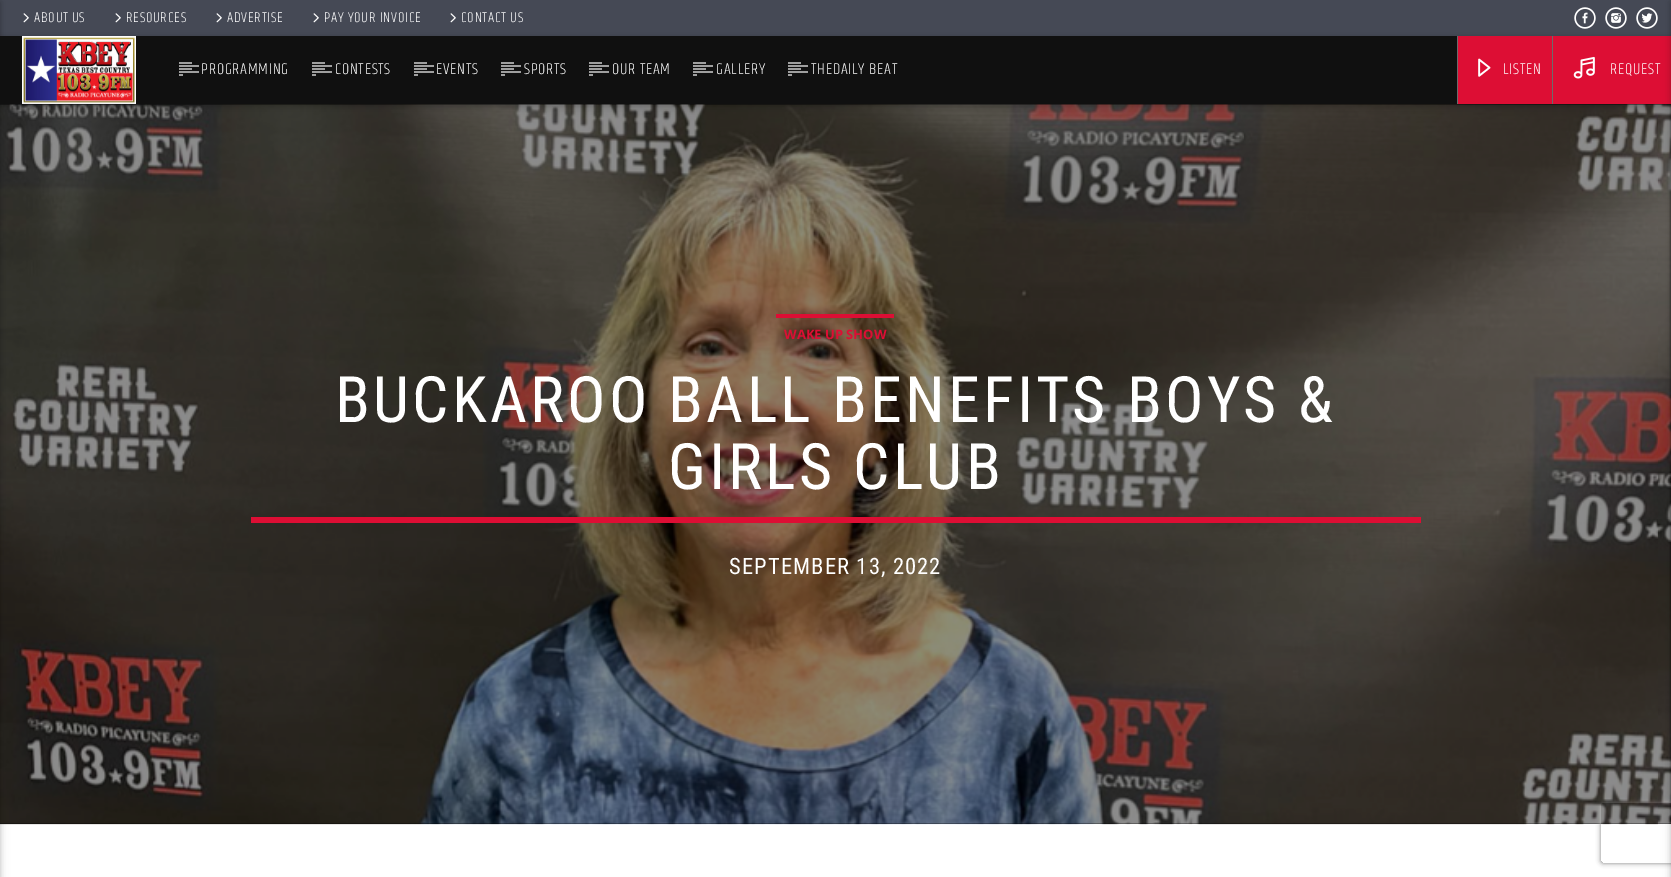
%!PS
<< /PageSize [1671 877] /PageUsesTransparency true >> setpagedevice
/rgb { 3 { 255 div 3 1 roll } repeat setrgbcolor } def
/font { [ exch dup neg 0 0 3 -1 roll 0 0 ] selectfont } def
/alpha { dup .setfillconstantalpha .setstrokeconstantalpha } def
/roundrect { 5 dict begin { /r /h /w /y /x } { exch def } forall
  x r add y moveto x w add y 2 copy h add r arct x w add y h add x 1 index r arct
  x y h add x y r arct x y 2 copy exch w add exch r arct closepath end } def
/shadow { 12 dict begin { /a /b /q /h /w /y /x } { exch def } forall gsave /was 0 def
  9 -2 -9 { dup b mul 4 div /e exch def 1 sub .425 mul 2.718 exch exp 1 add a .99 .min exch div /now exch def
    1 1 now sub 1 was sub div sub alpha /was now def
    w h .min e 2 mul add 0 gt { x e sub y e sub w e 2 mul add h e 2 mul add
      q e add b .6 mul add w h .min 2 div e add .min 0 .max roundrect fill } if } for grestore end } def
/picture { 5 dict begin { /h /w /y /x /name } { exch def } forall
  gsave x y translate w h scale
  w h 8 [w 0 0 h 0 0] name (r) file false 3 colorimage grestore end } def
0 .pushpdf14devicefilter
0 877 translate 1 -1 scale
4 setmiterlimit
255 255 255 rgb
0 0 1671 877 rectfill
69 73 85 rgb
0 0 1671 36 rectfill
(img/1.rgb) 23 13 6 10 picture
(img/1.rgb) 115 13 6 10 picture
(img/1.rgb) 216 13 6 10 picture
(img/1.rgb) 313 13 6 10 picture
(img/1.rgb) 450 13 6 10 picture
(img/2.rgb) 1574 7 22 22 picture
(img/3.rgb) 1605 7 22 22 picture
(img/4.rgb) 1636 7 22 22 picture
0 0 0 rgb
0 104 1671 720 rectfill
gsave
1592 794 moveto 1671 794 lineto 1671 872 lineto 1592 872 lineto closepath 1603 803 moveto 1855 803 lineto 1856 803 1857 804 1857 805 curveto 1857 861 lineto 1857 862 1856 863 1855 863 curveto 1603 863 lineto 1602 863 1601 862 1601 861 curveto 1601 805 lineto 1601 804 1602 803 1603 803 curveto closepath eoclip newpath
128 128 128 rgb
1601 803 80 60 2 2.5 1 shadow
grestore
(img/8.rgb) 0 104 1671 721 picture
0 38 1671 68 0 5 0.12 shadow
0 38 1671 68 0 2.5 0.16 shadow
16 16 16 rgb
0 36 1457 68 rectfill
0 0 0 rgb
-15 2 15 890 0 5 0.12 shadow
-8 2 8 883 0 2.5 0.16 shadow
(img/5.rgb) 22 36 114 68 picture
[
  [179 74 4 2 159 159 159]
  [179 62 13 2 159 159 159]
  [179 68 13 2 159 159 159]
  [179 65 20 2 159 159 159]
  [179 71 20 2 159 159 159]
  [312 74 4 2 159 159 159]
  [312 62 13 2 159 159 159]
  [312 68 13 2 159 159 159]
  [312 65 20 2 159 159 159]
  [312 71 20 2 159 159 159]
  [414 74 4 2 159 159 159]
  [414 62 13 2 159 159 159]
  [414 68 13 2 159 159 159]
  [414 65 20 2 159 159 159]
  [414 71 20 2 159 159 159]
  [501 74 4 2 159 159 159]
  [501 62 13 2 159 159 159]
  [501 68 13 2 159 159 159]
  [501 65 20 2 159 159 159]
  [501 71 20 2 159 159 159]
  [589 74 4 2 159 159 159]
  [589 62 13 2 159 159 159]
  [589 68 13 2 159 159 159]
  [589 65 20 2 159 159 159]
  [589 71 20 2 159 159 159]
  [693 74 4 2 159 159 159]
  [693 62 13 2 159 159 159]
  [693 68 13 2 159 159 159]
  [693 65 20 2 159 159 159]
  [693 71 20 2 159 159 159]
  [788 62 13 2 159 159 159]
  [788 68 13 2 159 159 159]
  [788 65 20 2 159 159 159]
  [788 71 20 2 159 159 159]
  [788 74 4 2 159 159 159]
  [1457 36 1 68 107 107 107]
  [1458 36 94 68 221 14 52]
] { aload pop rgb rectfill } forall
(img/6.rgb) 1478 58 13 19 picture
107 107 107 rgb
1552 36 1 68 rectfill
221 14 52 rgb
1553 36 118 68 rectfill
(img/7.rgb) 1573 56 22 23 picture
0 0 0 rgb
1671 2 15 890 0 5 0.12 shadow
1671 2 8 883 0 2.5 0.16 shadow
221 14 52 rgb
776 314 118 4 rectfill
251 517 1170 6 rectfill
/Khand-Light 14.5 font
255 255 255 rgb
34 22 moveto 0.75 0 (ABOUT US) ashow
126 22 moveto 0.75 0 (RESOURCES) ashow
227 22 moveto 0.75 0 (ADVERTISE) ashow
324 22 moveto 0.75 0 (PAY YOUR INVOICE) ashow
461 22 moveto 0.75 0 (CONTACT US) ashow
/Khand-Light 16 font
201 74 moveto 0.75 0 (PROGRAMMING) ashow
335 74 moveto 0.75 0 (CONTESTS) ashow
436 74 moveto 0.75 0 (EVENTS) ashow
524 74 moveto 0.75 0 (SPORTS) ashow
612 74 moveto 0.75 0 (OUR TEAM) ashow
716 74 moveto 0.75 0 (GALLERY) ashow
811 74 moveto 0.75 0 (THEDAILY BEAT) ashow
1503 74 moveto 0.75 0 (LISTEN) ashow
1610 74 moveto 0.75 0 (REQUEST) ashow
/OpenSans-Bold 13 font
221 14 52 rgb
784 339 moveto (WAKE UP SHOW) show
/RobotoCondensed-Regular 64 font
255 255 255 rgb
335 422 moveto 3.2 0 (BUCKAROO BALL BENEFITS BOYS &) ashow
668 489 moveto 3.2 0 (GIRLS CLUB) ashow
/RobotoCondensed-Regular 22.6 font
729 574 moveto 1.1 0 (SEPTEMBER 13, 2022) ashow
.poppdf14devicefilter showpage
